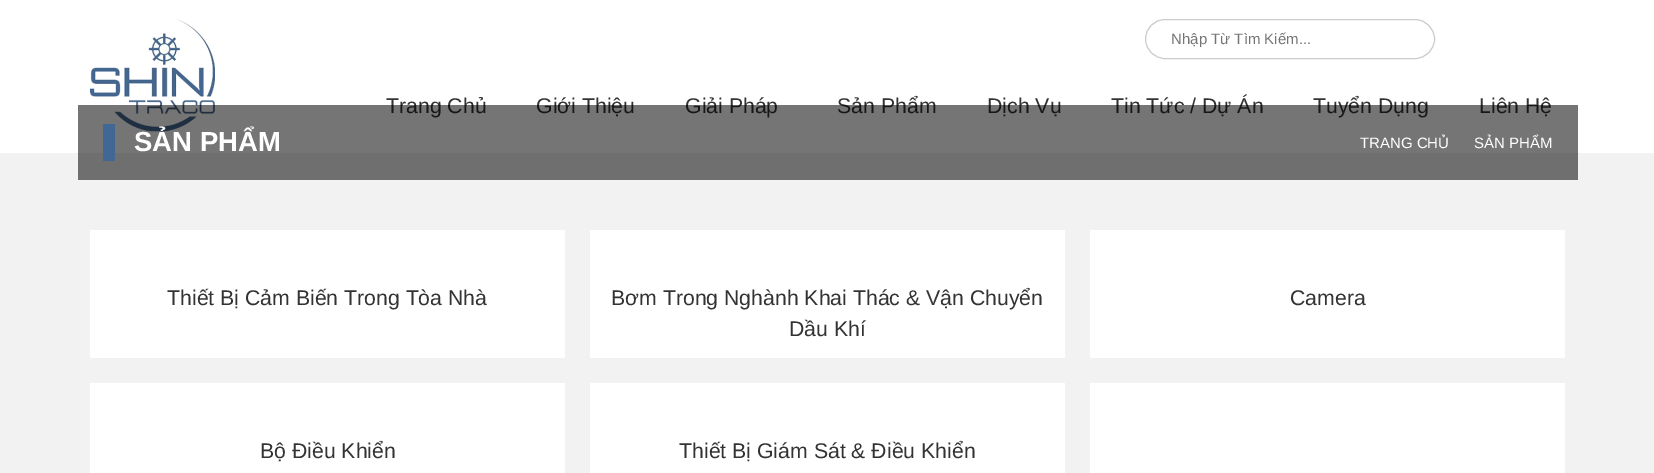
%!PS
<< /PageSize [1654 473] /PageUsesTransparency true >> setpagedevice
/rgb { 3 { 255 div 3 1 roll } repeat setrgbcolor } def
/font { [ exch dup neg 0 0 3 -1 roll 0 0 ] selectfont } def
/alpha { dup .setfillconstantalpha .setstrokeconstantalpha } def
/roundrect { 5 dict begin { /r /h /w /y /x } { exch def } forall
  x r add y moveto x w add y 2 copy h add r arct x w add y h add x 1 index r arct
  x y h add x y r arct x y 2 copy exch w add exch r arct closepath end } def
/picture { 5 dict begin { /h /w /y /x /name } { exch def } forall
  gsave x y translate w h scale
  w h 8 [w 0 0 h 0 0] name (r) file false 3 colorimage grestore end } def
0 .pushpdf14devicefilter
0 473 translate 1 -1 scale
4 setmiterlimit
242 242 242 rgb
0 0 1654 473 rectfill
255 255 255 rgb
0 0 1654 153 rectfill
(img/1.rgb) 90 18 125 114 picture
204 204 204 rgb
1145.5 19.5 289 39 19.5 roundrect stroke
[
  [90 230 475 128 255 255 255]
  [590 230 475 128 255 255 255]
  [1090 230 475 128 255 255 255]
  [90 383 475 90 255 255 255]
  [590 383 475 90 255 255 255]
  [1090 383 475 90 255 255 255]
] { aload pop rgb rectfill } forall
/LiberationSans-Regular 15 font
117 117 117 rgb
1171 44 moveto (Nhập Từ Tìm Kiếm...) show
/LiberationSans-Regular 21.25 font
51 51 51 rgb
[
  [(Trang Chủ) 386 113]
  [(Giới Thiệu) 536 113]
  [(Giải Pháp) 685 113]
  [(Sản Phẩm) 837 113]
  [(Dịch Vụ) 987 113]
  [(Tin Tức / Dự Án) 1111 113]
  [(Tuyển Dụng) 1313 113]
  [(Liên Hệ) 1479 113]
] { aload pop moveto show } forall
0.54 alpha
0 0 0 rgb
78 105 1500 75 rectfill
1 alpha
65 104 148 rgb
103 124 12 37 rectfill
/LiberationSans-Bold 27.5 font
255 255 255 rgb
134 151 moveto (SẢN PHẨM) show
/LiberationSans-Regular 15 font
1360 148 moveto (TRANG CHỦ) show
1474 148 moveto (SẢN PHẨM) show
/LiberationSans-Regular 21.25 font
51 51 51 rgb
[
  [(Thiết Bị Cảm Biến Trong Tòa Nhà) 167 305]
  [(Bơm Trong Nghành Khai Thác & Vận Chuyển) 611 305]
  [(Dầu Khí) 789 336]
  [(Camera) 1290 305]
  [(Bộ Điều Khiển) 260 458]
  [(Thiết Bị Giám Sát & Điều Khiển) 679 458]
] { aload pop moveto show } forall
.poppdf14devicefilter showpage
